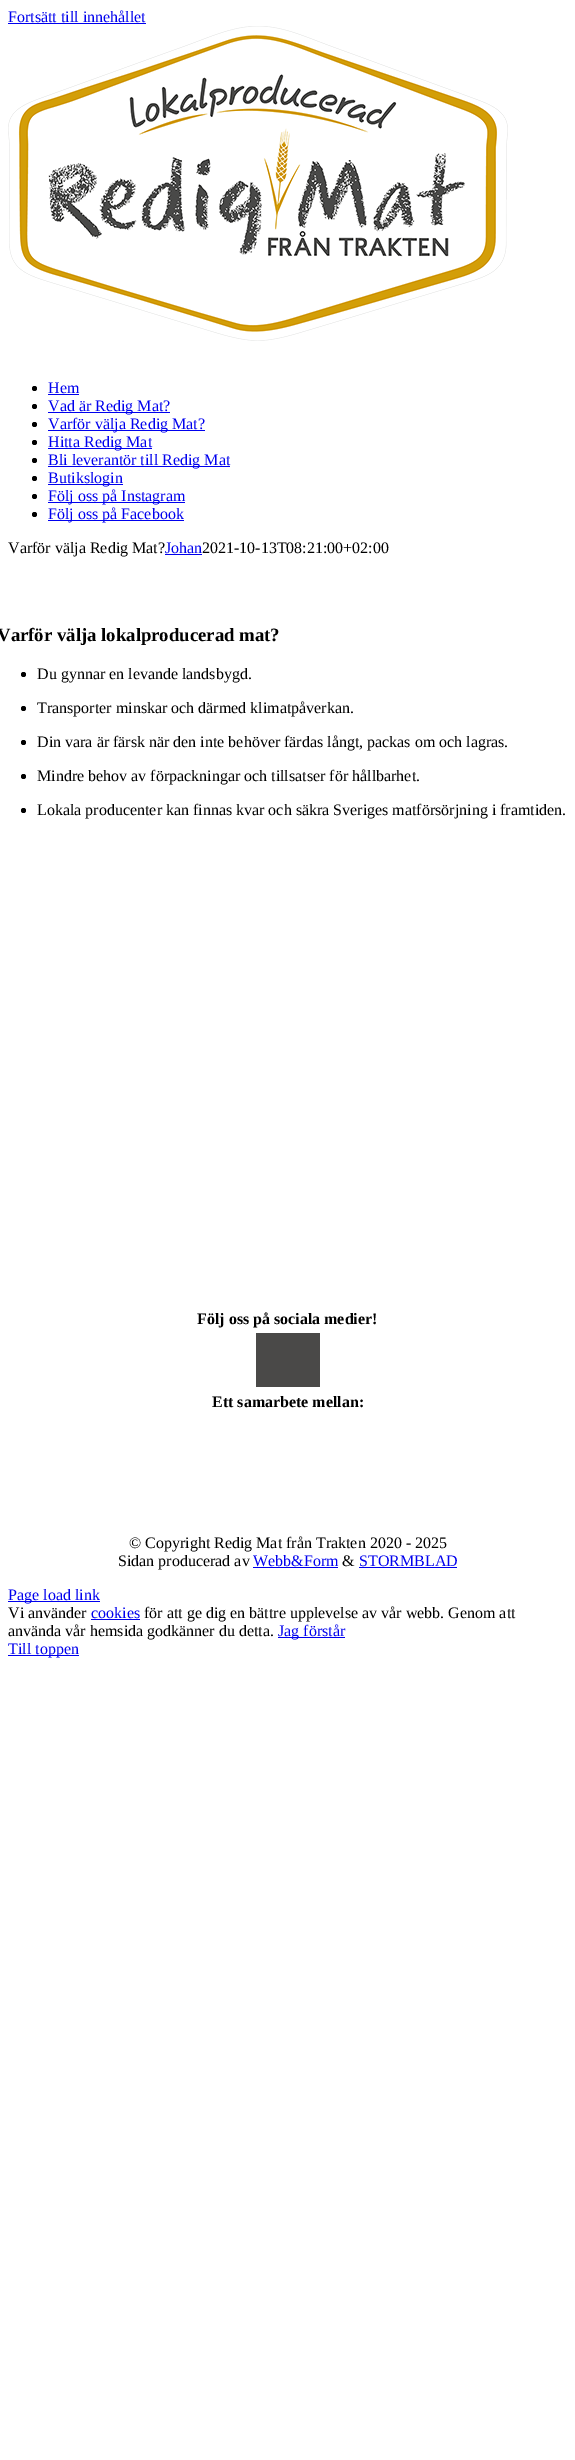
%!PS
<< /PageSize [575 2460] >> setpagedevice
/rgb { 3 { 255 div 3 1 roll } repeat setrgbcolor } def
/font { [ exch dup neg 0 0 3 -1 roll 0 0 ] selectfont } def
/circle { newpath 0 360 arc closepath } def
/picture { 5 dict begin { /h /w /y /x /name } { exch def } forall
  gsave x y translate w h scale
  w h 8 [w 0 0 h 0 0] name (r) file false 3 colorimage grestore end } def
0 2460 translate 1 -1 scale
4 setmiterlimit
255 255 255 rgb
0 0 575 2460 rectfill
0 0 238 rgb
8 23 138 1 rectfill
(img/1.rgb) 8 26 500 315 picture
0 0 0 rgb
34.5 388.5 2.5 circle fill
0 0 238 rgb
48 394 31 1 rectfill
0 0 0 rgb
34.5 406.5 2.5 circle fill
0 0 238 rgb
48 412 122 1 rectfill
0 0 0 rgb
34.5 424.5 2.5 circle fill
0 0 238 rgb
48 430 157 1 rectfill
0 0 0 rgb
34.5 442.5 2.5 circle fill
0 0 238 rgb
48 448 104 1 rectfill
0 0 0 rgb
34.5 460.5 2.5 circle fill
0 0 238 rgb
48 466 182 1 rectfill
0 0 0 rgb
34.5 478.5 2.5 circle fill
0 0 238 rgb
48 484 75 1 rectfill
0 0 0 rgb
34.5 496.5 2.5 circle fill
0 0 238 rgb
48 502 137 1 rectfill
0 0 0 rgb
34.5 514.5 2.5 circle fill
0 0 238 rgb
48 520 136 1 rectfill
165 554 37 1 rectfill
0 0 0 rgb
23.5 674.5 2.5 circle fill
23.5 708.5 2.5 circle fill
23.5 742.5 2.5 circle fill
23.5 776.5 2.5 circle fill
23.5 810.5 2.5 circle fill
[
  [256 1333 64 54 74 73 72]
  [253 1567 85 1 0 0 238]
  [359 1567 98 1 0 0 238]
  [8 1601 92 1 0 0 238]
  [91 1619 49 1 0 0 238]
  [278 1637 67 1 0 0 238]
  [8 1655 71 1 0 0 238]
] { aload pop rgb rectfill } forall
/LiberationSerif-Regular 16 font
[
  [(Fortsätt till innehållet) 8 22]
  [(Hem) 48 393]
  [(Vad är Redig Mat?) 48 411]
  [(Varför välja Redig Mat?) 48 429]
  [(Hitta Redig Mat) 48 447]
  [(Bli leverantör till Redig Mat) 48 465]
  [(Butikslogin) 48 483]
  [(Följ oss på Instagram) 48 501]
  [(Följ oss på Facebook) 48 519]
] { aload pop moveto show } forall
0 0 0 rgb
8 553 moveto (Varför välja Redig Mat?) show
0 0 238 rgb
165 553 moveto (Johan) show
0 0 0 rgb
202 553 moveto (2021-10-13T08:21:00+02:00) show
/LiberationSerif-Bold 18.75 font
-3 641 moveto (Varför välja lokalproducerad mat?) show
/LiberationSerif-Regular 16 font
[
  [(Du gynnar en levande landsbygd.) 37 679]
  [(Transporter minskar och därmed klimatpåverkan.) 37 713]
  [(Din vara är färsk när den inte behöver färdas långt, packas om och lagras.) 37 747]
  [(Mindre behov av förpackningar och tillsatser för hållbarhet.) 37 781]
  [(Lokala producenter kan finnas kvar och säkra Sveriges matförsörjning i framtiden.) 37 815]
] { aload pop moveto show } forall
/LiberationSerif-Bold 16 font
197 1324 moveto (Följ oss på sociala medier!) show
212 1407 moveto (Ett samarbete mellan:) show
/LiberationSerif-Regular 16 font
129 1548 moveto (© Copyright Redig Mat från Trakten 2020 - 2025) show
118 1566 moveto (Sidan producerad av) show
0 0 238 rgb
253 1566 moveto (Webb&Form) show
0 0 0 rgb
342 1566 moveto (&) show
0 0 238 rgb
359 1566 moveto (STORMBLAD) show
8 1600 moveto (Page load link) show
0 0 0 rgb
8 1618 moveto (Vi använder) show
0 0 238 rgb
91 1618 moveto (cookies) show
0 0 0 rgb
144 1618 moveto (för att ge dig en bättre upplevelse av vår webb. Genom att) show
8 1636 moveto (använda vår hemsida godkänner du detta.) show
0 0 238 rgb
278 1636 moveto (Jag förstår) show
8 1654 moveto (Till toppen) show
showpage
